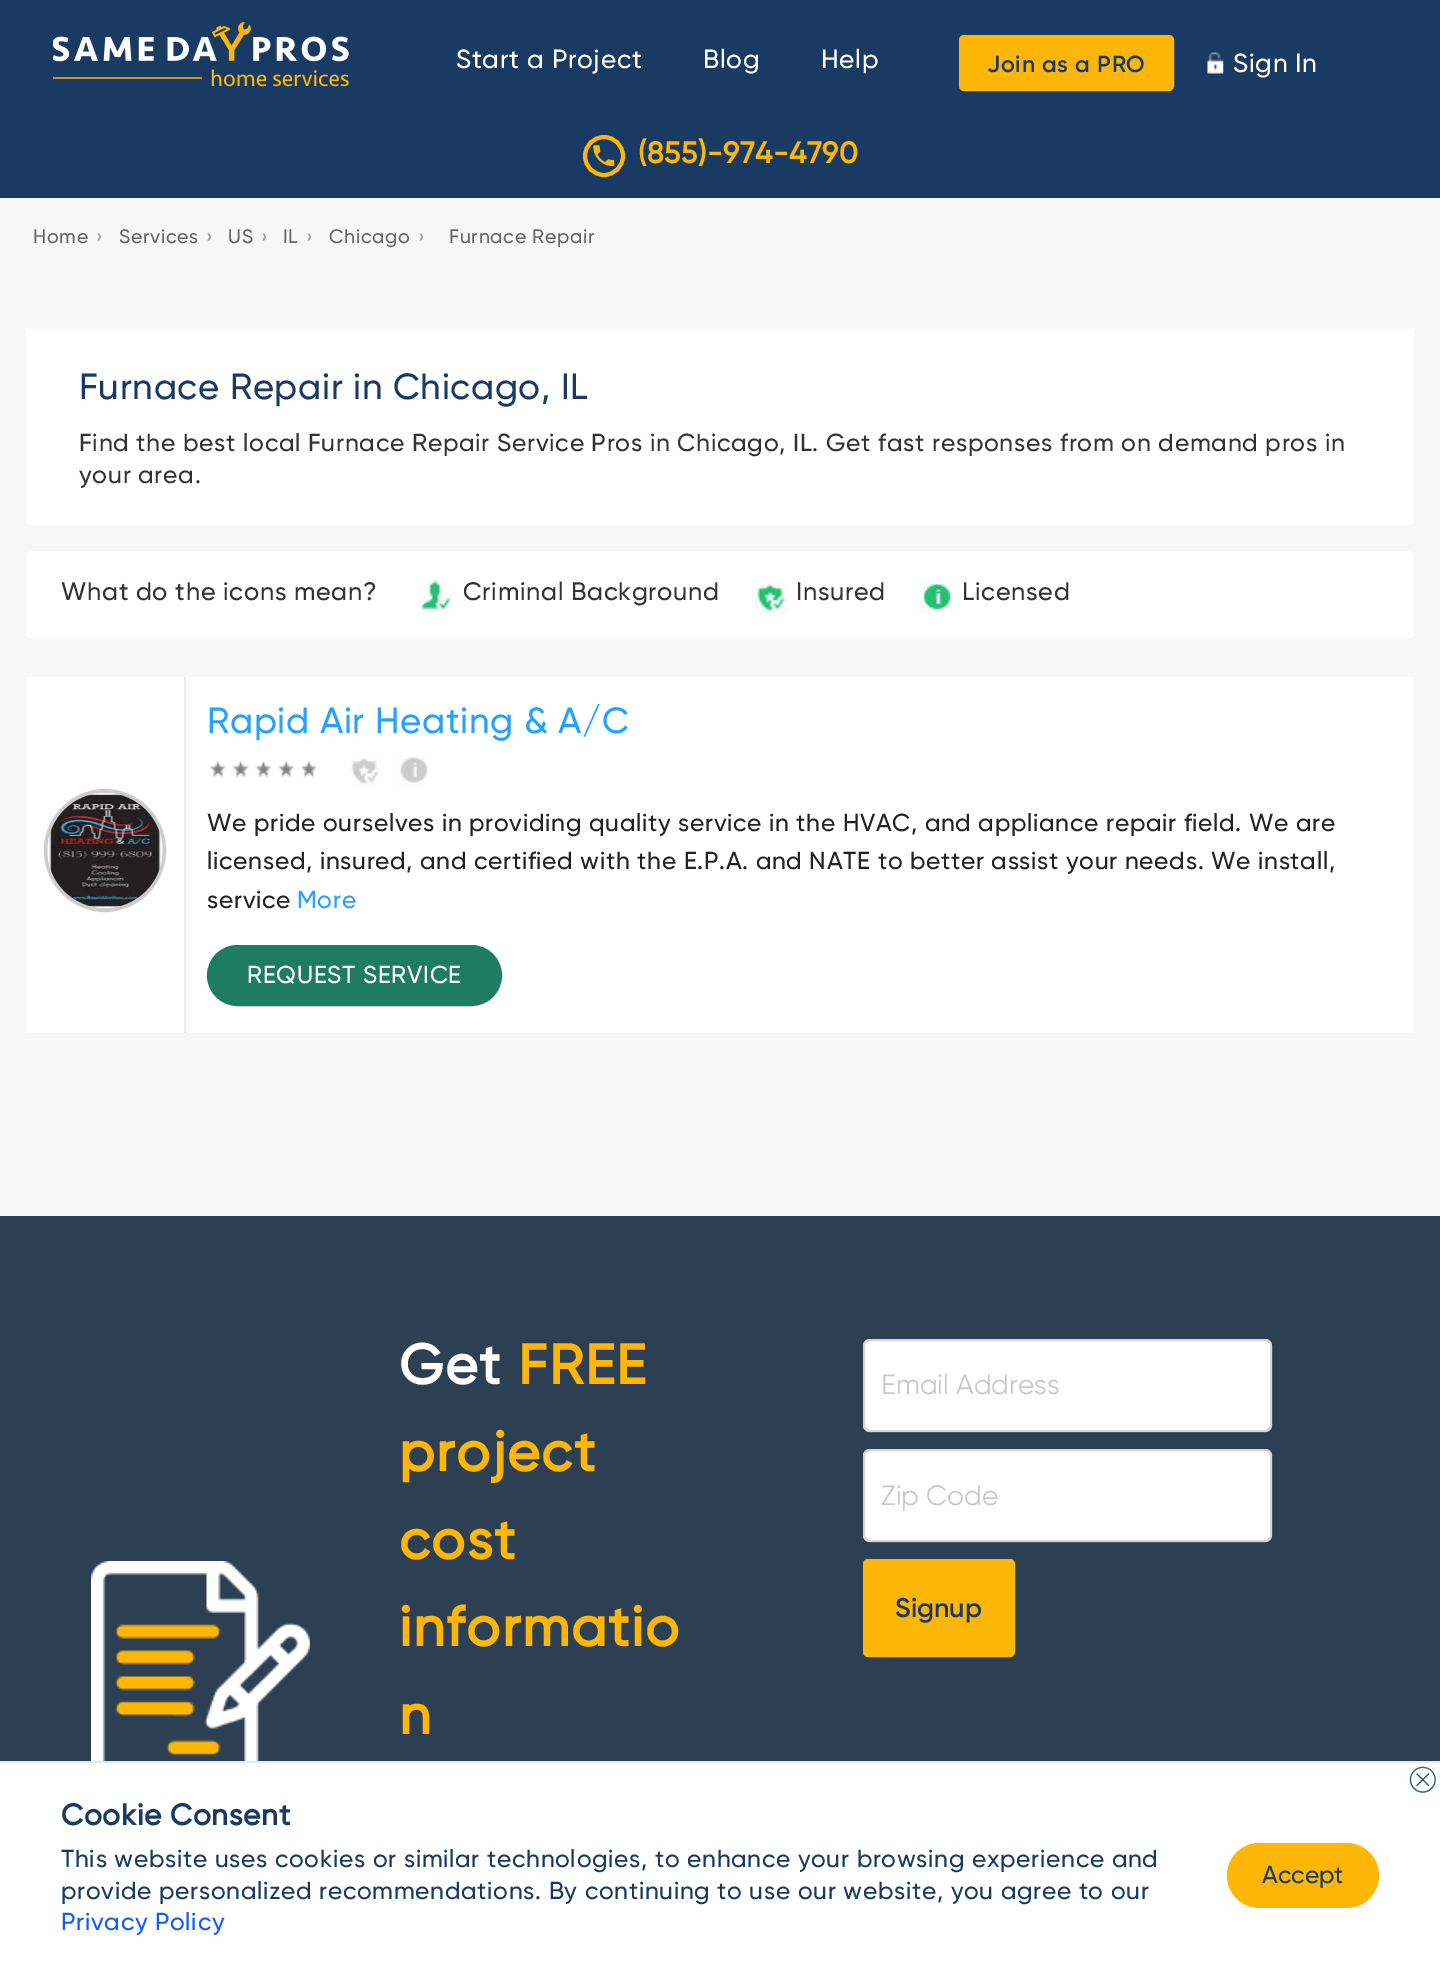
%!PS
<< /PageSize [1440 1971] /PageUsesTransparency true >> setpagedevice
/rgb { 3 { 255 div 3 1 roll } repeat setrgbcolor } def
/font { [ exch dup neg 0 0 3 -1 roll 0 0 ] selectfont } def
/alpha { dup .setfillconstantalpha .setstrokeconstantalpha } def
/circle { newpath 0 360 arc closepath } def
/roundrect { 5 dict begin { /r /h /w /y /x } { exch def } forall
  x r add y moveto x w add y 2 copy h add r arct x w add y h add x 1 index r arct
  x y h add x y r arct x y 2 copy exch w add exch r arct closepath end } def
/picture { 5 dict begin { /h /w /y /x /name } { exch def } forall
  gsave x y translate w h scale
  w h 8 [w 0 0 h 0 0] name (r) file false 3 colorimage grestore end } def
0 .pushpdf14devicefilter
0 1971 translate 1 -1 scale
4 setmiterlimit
44 63 83 rgb
0 0 1440 1971 rectfill
25 58 99 rgb
0 0 1440 198 rectfill
(img/1.rgb) 53 22 296 65 picture
255 182 7 rgb
960 36 213 54 4 roundrect gsave fill grestore
2 setlinewidth
stroke
(img/2.rgb) 1207 52 17 22 picture
4 setlinewidth
604 156 19 circle stroke
(img/3.rgb) 593 145 22 21 picture
247 247 247 rgb
0 198 1440 1018 rectfill
255 255 255 rgb
26 329 moveto 1414 329 lineto 1414 520 lineto 1414 523 1412 525 1409 525 curveto 31 525 lineto 28 525 26 523 26 520 curveto closepath fill
26 551 1388 88 7 roundrect fill
(img/4.rgb) 418 579 35 35 picture
(img/5.rgb) 752 580 36 34 picture
(img/6.rgb) 919 579 35 35 picture
26 677 1388 356 rectfill
204 204 204 rgb
46 791 118 119 59 roundrect stroke
(img/7.rgb) 47 793 116 115 picture
235 235 235 rgb
184 677 2 356 rectfill
(img/8.rgb) 209 761 17 17 picture
(img/9.rgb) 225 761 24 17 picture
(img/10.rgb) 248 761 24 17 picture
(img/11.rgb) 271 761 23 17 picture
(img/12.rgb) 294 761 24 17 picture
(img/13.rgb) 351 757 30 30 picture
(img/14.rgb) 395 756 33 31 picture
30 124 97 rgb
208 946 293 59 29.5 roundrect gsave fill grestore
2 setlinewidth
stroke
255 255 255 rgb
863 1339 409 93 7 roundrect fill
0.7 alpha
196 196 196 rgb
864 1340 407 91 6 roundrect stroke
1 alpha
255 255 255 rgb
863 1449 409 93 7 roundrect fill
0.7 alpha
196 196 196 rgb
864 1450 407 91 6 roundrect stroke
1 alpha
255 182 7 rgb
864 1560 150 96 4 roundrect gsave fill grestore
stroke
(img/15.rgb) 91 1561 219 200 picture
255 255 255 rgb
0 1763 1440 208 rectfill
233 233 233 rgb
0 1761 1440 2 rectfill
(img/16.rgb) 1409 1766 27 27 picture
255 182 7 rgb
1227 1843 152 65 32.5 roundrect fill
/Gilroy-Medium 26.25 font
255 255 255 rgb
456 68 moveto 0.7 0 (Start a Project) ashow
703 68 moveto 0.7 0 (Blog) ashow
821 68 moveto 0.7 0 (Help) ashow
/Gilroy-SemiBold 23.25 font
25 58 99 rgb
987 72 moveto 0.7 0 (Join as a PRO) ashow
/Gilroy-Medium 26.25 font
255 255 255 rgb
1233 72 moveto 0.7 0 (Sign In) ashow
/Gilroy-Bold 29.75 font
255 182 7 rgb
638 163 moveto 0.7 0 (\(855\)-974-4790) ashow
/Gilroy-Medium 19.5 font
102 102 102 rgb
33 243 moveto 0.7 0 (Home) ashow
153 153 153 rgb
96 243 moveto 0.7 0 (›) ashow
102 102 102 rgb
119 243 moveto 0.7 0 (Services) ashow
153 153 153 rgb
206 243 moveto 0.7 0 (›) ashow
102 102 102 rgb
228 243 moveto 0.7 0 (US) ashow
153 153 153 rgb
261 243 moveto 0.7 0 (›) ashow
102 102 102 rgb
283 243 moveto 0.7 0 (IL) ashow
153 153 153 rgb
306 243 moveto 0.7 0 (›) ashow
102 102 102 rgb
329 243 moveto 0.7 0 (Chicago) ashow
153 153 153 rgb
418 243 moveto 0.7 0 (›) ashow
102 102 102 rgb
449 243 moveto 0.7 0 (Furnace Repair) ashow
/Gilroy-Medium 36.4 font
25 58 99 rgb
79 399 moveto 0.7 0 (Furnace Repair in Chicago, IL) ashow
/Gilroy-Medium 24.65 font
51 51 51 rgb
79 451 moveto 0.7 0 (Find the best local Furnace Repair Service Pros in Chicago, IL. Get fast responses from on demand pros in) ashow
79 483 moveto 0.7 0 (your area.) ashow
/Gilroy-Medium 25.25 font
61 600 moveto 0.7 0 (What do the icons mean?) ashow
463 600 moveto 0.7 0 (Criminal Background) ashow
796 600 moveto 0.7 0 (Insured) ashow
962 600 moveto 0.7 0 (Licensed) ashow
/Gilroy-Medium 36.4 font
38 161 255 rgb
207 733 moveto 0.7 0 (Rapid Air Heating & A/C) ashow
/Gilroy-Medium 24.5 font
34 34 34 rgb
207 831 moveto 0.7 0 (We pride ourselves in providing quality service in the HVAC, and appliance repair field. We are) ashow
207 869 moveto 0.7 0 (licensed, insured, and certified with the E.P.A. and NATE to better assist your needs. We install,) ashow
207 908 moveto 0.7 0 (service) ashow
38 161 255 rgb
297 908 moveto 0.7 0 (More) ashow
255 255 255 rgb
247 983 moveto 0.7 0 (REQUEST SERVICE) ashow
/Gilroy-Bold 56 font
399 1384 moveto 1.75 0 (Get) ashow
255 182 7 rgb
518 1384 moveto 1.75 0 (FREE) ashow
399 1471 moveto 1.75 0 (project) ashow
399 1559 moveto 1.75 0 (cost) ashow
399 1646 moveto 1.75 0 (informatio) ashow
399 1734 moveto 1.75 0 (n) ashow
/Gilroy-Regular 28 font
200 200 200 rgb
881 1394 moveto (Email Address) show
881 1505 moveto (Zip Code) show
/Gilroy-SemiBold 27 font
25 58 99 rgb
895 1617 moveto (Signup) show
/Gilroy-Bold 29.75 font
61 1825 moveto 0.7 0 (Cookie Consent) ashow
/Gilroy-Medium 24.5 font
61 1867 moveto 0.7 0 (This website uses cookies or similar technologies, to enhance your browsing experience and) ashow
61 1899 moveto 0.7 0 (provide personalized recommendations. By continuing to use our website, you agree to our) ashow
17 92 250 rgb
61 1930 moveto 0.7 0 (Privacy Policy) ashow
25 58 99 rgb
1262 1883 moveto (Accept) show
.poppdf14devicefilter showpage
